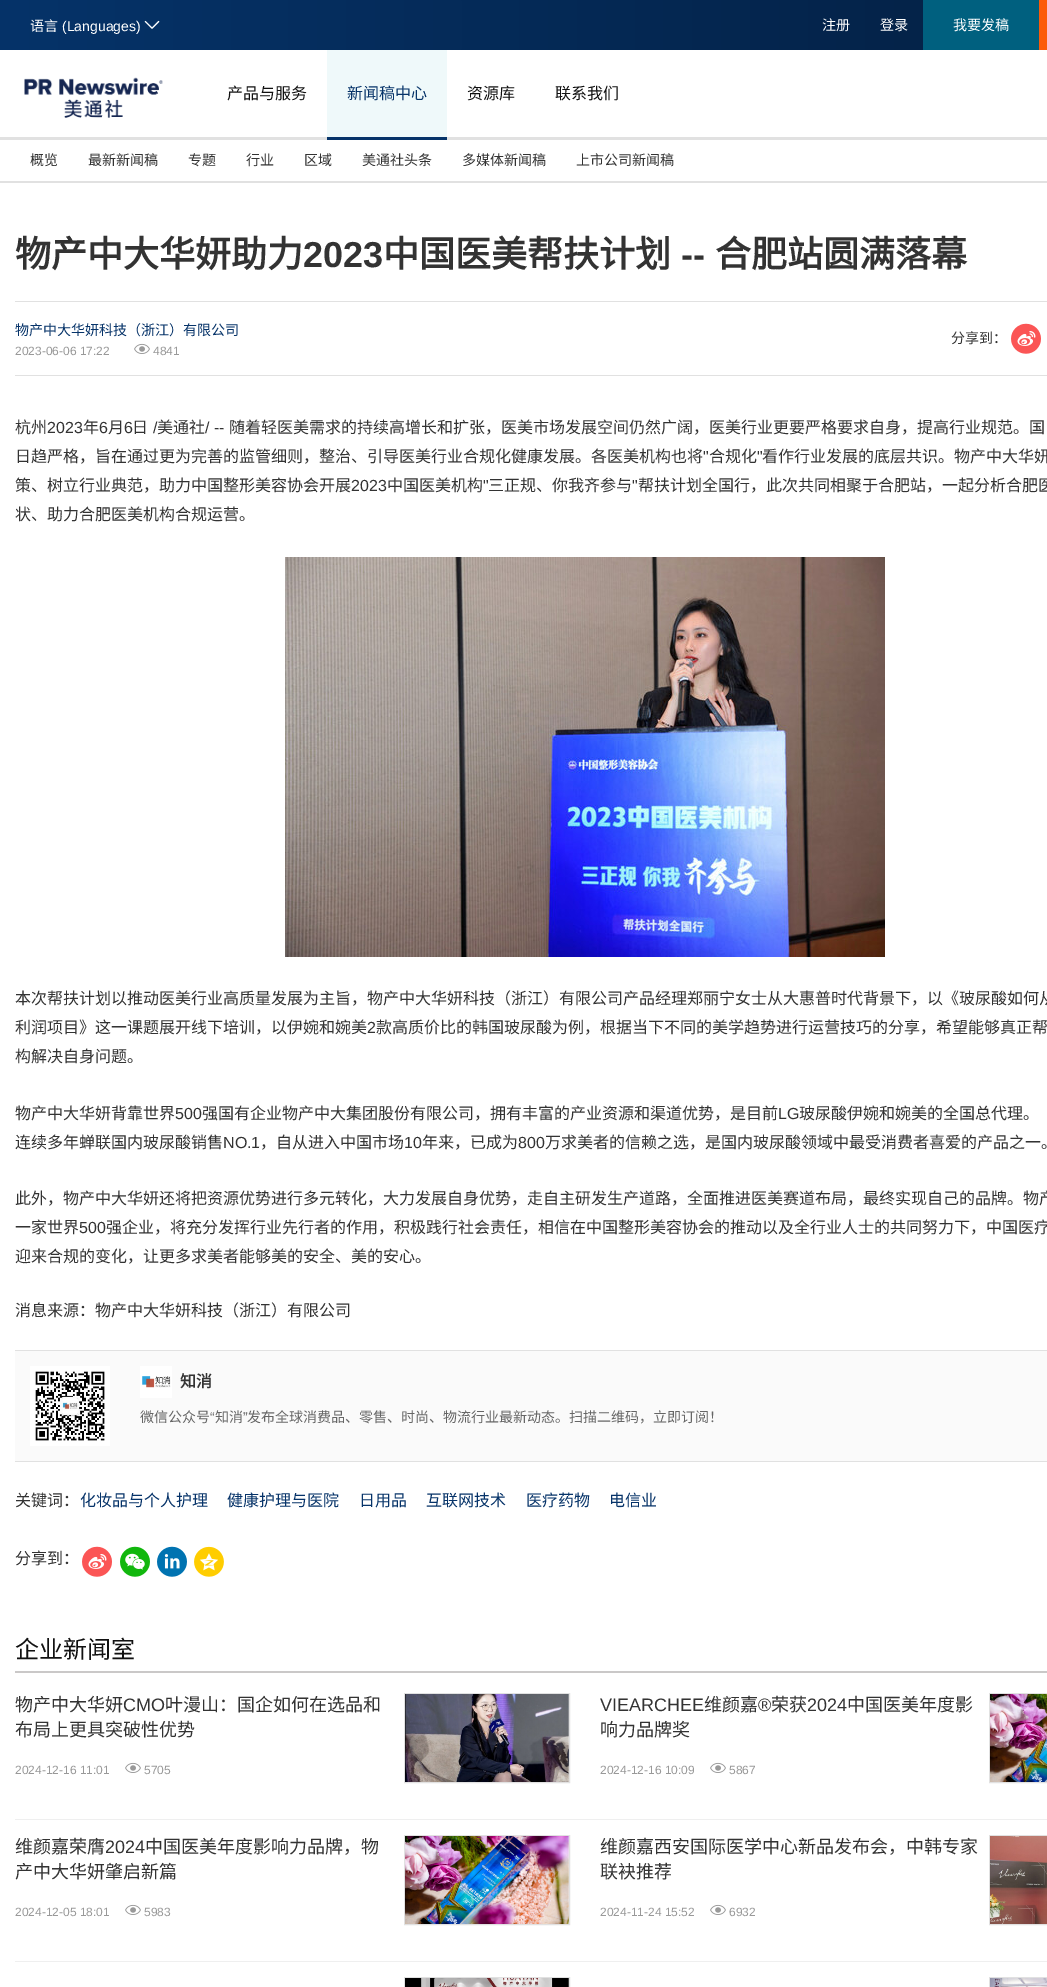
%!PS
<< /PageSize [1047 1987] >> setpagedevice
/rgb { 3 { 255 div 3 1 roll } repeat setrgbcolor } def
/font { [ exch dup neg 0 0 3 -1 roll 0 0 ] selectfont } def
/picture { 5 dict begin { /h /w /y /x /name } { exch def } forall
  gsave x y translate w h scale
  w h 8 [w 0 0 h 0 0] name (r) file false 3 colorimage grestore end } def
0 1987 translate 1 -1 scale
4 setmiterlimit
255 255 255 rgb
0 0 1047 1987 rectfill
gsave 0 0 moveto 923 0 lineto 923 50 lineto 0 50 lineto closepath clip newpath
<< /ShadingType 2 /ColorSpace /DeviceRGB /Coords [0 25 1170 25] /Extend [true true] /Function << /FunctionType 2 /Domain [0 1] /C0 [0.024 0.2 0.412] /C1 [0.012 0.122 0.255] /N 1 >> >> shfill grestore
(img/1.rgb) 144 20 16 9 picture
[
  [923 0 116 50 0 96 127]
  [1039 0 8 50 252 91 8]
  [0 137 1047 3 225 225 225]
] { aload pop rgb rectfill } forall
(img/2.rgb) 24 77 139 41 picture
[
  [327 50 120 87 239 249 250]
  [327 137 120 3 6 51 105]
  [0 181 1047 2 225 225 225]
  [15 301 1032 1 225 225 225]
  [15 375 1032 1 225 225 225]
] { aload pop rgb rectfill } forall
(img/3.rgb) 134 343 16 11 picture
(img/4.rgb) 1011 323 30 31 picture
(img/5.rgb) 285 557 600 400 picture
[
  [15 1351 1032 110 250 250 250]
  [15 1350 1032 1 225 225 225]
  [15 1461 1032 1 225 225 225]
] { aload pop rgb rectfill } forall
(img/6.rgb) 30 1366 80 80 picture
(img/7.rgb) 140 1366 32 32 picture
(img/4.rgb) 82 1546 30 31 picture
(img/8.rgb) 120 1546 30 31 picture
(img/9.rgb) 157 1546 30 31 picture
(img/10.rgb) 194 1546 30 31 picture
202 200 200 rgb
15 1671 1032 2 rectfill
239 239 239 rgb
15 1819 1032 1 rectfill
(img/3.rgb) 125 1762 16 11 picture
225 225 225 rgb
404.5 1693.5 165 89 rectstroke
(img/11.rgb) 405 1694 164 88 picture
(img/3.rgb) 710 1762 16 11 picture
989.5 1693.5 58 89 rectstroke
(img/12.rgb) 990 1694 57 88 picture
239 239 239 rgb
15 1961 1032 1 rectfill
(img/3.rgb) 125 1904 16 11 picture
225 225 225 rgb
404.5 1835.5 165 89 rectstroke
(img/13.rgb) 405 1836 164 88 picture
(img/3.rgb) 710 1904 16 11 picture
989.5 1835.5 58 89 rectstroke
(img/14.rgb) 990 1836 57 88 picture
404.5 1977.5 165 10 rectstroke
(img/15.rgb) 405 1978 164 9 picture
989.5 1977.5 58 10 rectstroke
(img/16.rgb) 990 1978 57 9 picture
/NotoSansCJKSC-Regular 14 font
255 255 255 rgb
30 31 moveto (语言) show
/LiberationSans-Regular 14 font
62 31 moveto (\(Languages\)) show
/NotoSansCJKSC-Regular 14 font
[
  [(注册) 822 30]
  [(登录) 880 30]
  [(我要发稿) 953 30]
] { aload pop moveto show } forall
/NotoSansCJKSC-Regular 16 font
17 17 17 rgb
227 99 moveto (产品与服务) show
6 51 105 rgb
347 99 moveto (新闻稿中心) show
17 17 17 rgb
467 99 moveto (资源库) show
555 99 moveto (联系我们) show
/NotoSansCJKSC-Regular 14 font
51 51 51 rgb
[
  [(概览) 30 165]
  [(最新新闻稿) 88 165]
  [(专题) 188 165]
  [(行业) 246 165]
  [(区域) 304 165]
  [(美通社头条) 362 165]
  [(多媒体新闻稿) 462 165]
  [(上市公司新闻稿) 576 165]
] { aload pop moveto show } forall
/NotoSansCJKSC-Bold 36 font
15 267 moveto (物产中大华妍助力) show
/LiberationSans-Bold 36 font
303 267 moveto (2023) show
/NotoSansCJKSC-Bold 36 font
383 267 moveto (中国医美帮扶计划) show
/LiberationSans-Bold 36 font
681 267 moveto (--) show
/NotoSansCJKSC-Bold 36 font
715 267 moveto (合肥站圆满落幕) show
/NotoSansCJKSC-Regular 14 font
6 51 105 rgb
15 335 moveto (物产中大华妍科技（浙江）有限公司) show
/LiberationSans-Regular 12 font
153 153 153 rgb
15 355 moveto (2023-06-06 17:22) show
153 355 moveto (4841) show
/NotoSansCJKSC-Regular 14 font
51 51 51 rgb
951 343 moveto (分享到：) show
/NotoSansCJKSC-Regular 16 font
15 433 moveto (杭州) show
/LiberationSans-Regular 16 font
47 433 moveto (2023) show
/NotoSansCJKSC-Regular 16 font
83 433 moveto (年) show
/LiberationSans-Regular 16 font
99 433 moveto (6) show
/NotoSansCJKSC-Regular 16 font
108 433 moveto (月) show
/LiberationSans-Regular 16 font
124 433 moveto (6) show
/NotoSansCJKSC-Regular 16 font
132 433 moveto (日) show
/LiberationSans-Regular 16 font
153 433 moveto (/) show
/NotoSansCJKSC-Regular 16 font
157 433 moveto (美通社) show
/LiberationSans-Regular 16 font
205 433 moveto (/ --) show
/NotoSansCJKSC-Regular 16 font
229 433 moveto (随着轻医美需求的持续高增长和扩张，医美市场发展空间仍然广阔，医美行业更要严格要求自身，提高行业规范。国) show
15 462 moveto (日趋严格，旨在通过更为完善的监管细则，整治、引导医美行业合规化健康发展。各医美机构也将) show
/LiberationSans-Regular 16 font
703 462 moveto (") show
/NotoSansCJKSC-Regular 16 font
709 462 moveto (合规化) show
/LiberationSans-Regular 16 font
757 462 moveto (") show
/NotoSansCJKSC-Regular 16 font
762 462 moveto (看作行业发展的底层共识。物产中大华妍) show
15 491 moveto (策、树立行业典范，助力中国整形美容协会开展) show
/LiberationSans-Regular 16 font
351 491 moveto (2023) show
/NotoSansCJKSC-Regular 16 font
387 491 moveto (中国医美机构) show
/LiberationSans-Regular 16 font
483 491 moveto (") show
/NotoSansCJKSC-Regular 16 font
488 491 moveto (三正规、你我齐参与) show
/LiberationSans-Regular 16 font
632 491 moveto (") show
/NotoSansCJKSC-Regular 16 font
[
  [(帮扶计划全国行，此次共同相聚于合肥站，一起分析合肥医) 638 491]
  [(状、助力合肥医美机构合规运营。) 15 520]
  [(本次帮扶计划以推动医美行业高质量发展为主旨，物产中大华妍科技（浙江）有限公司产品经理郑丽宁女士从大惠普时代背景下，以《玻尿酸如何从) 15 1004]
  [(利润项目》这一课题展开线下培训，以伊婉和婉美) 15 1033]
] { aload pop moveto show } forall
/LiberationSans-Regular 16 font
367 1033 moveto (2) show
/NotoSansCJKSC-Regular 16 font
[
  [(款高质价比的韩国玻尿酸为例，根据当下不同的美学趋势进行运营技巧的分享，希望能够真正帮) 376 1033]
  [(构解决自身问题。) 15 1062]
  [(物产中大华妍背靠世界) 15 1119]
] { aload pop moveto show } forall
/LiberationSans-Regular 16 font
175 1119 moveto (500) show
/NotoSansCJKSC-Regular 16 font
202 1119 moveto (强国有企业物产中大集团股份有限公司，拥有丰富的产业资源和渠道优势，是目前) show
/LiberationSans-Regular 16 font
778 1119 moveto (LG) show
/NotoSansCJKSC-Regular 16 font
799 1119 moveto (玻尿酸伊婉和婉美的全国总代理。) show
15 1148 moveto (连续多年蝉联国内玻尿酸销售) show
/LiberationSans-Regular 16 font
223 1148 moveto (NO.1) show
/NotoSansCJKSC-Regular 16 font
260 1148 moveto (，自从进入中国市场) show
/LiberationSans-Regular 16 font
404 1148 moveto (10) show
/NotoSansCJKSC-Regular 16 font
422 1148 moveto (年来，已成为) show
/LiberationSans-Regular 16 font
518 1148 moveto (800) show
/NotoSansCJKSC-Regular 16 font
[
  [(万求美者的信赖之选，是国内玻尿酸领域中最受消费者喜爱的产品之一。) 545 1148]
  [(此外，物产中大华妍还将把资源优势进行多元转化，大力发展自身优势，走自主研发生产道路，全面推进医美赛道布局，最终实现自己的品牌。物产) 15 1204]
  [(一家世界) 15 1233]
] { aload pop moveto show } forall
/LiberationSans-Regular 16 font
79 1233 moveto (500) show
/NotoSansCJKSC-Regular 16 font
[
  [(强企业，将充分发挥行业先行者的作用，积极践行社会责任，相信在中国整形美容协会的推动以及全行业人士的共同努力下，中国医疗) 106 1233]
  [(迎来合规的变化，让更多求美者能够美的安全、美的安心。) 15 1262]
  [(消息来源：物产中大华妍科技（浙江）有限公司) 15 1316]
] { aload pop moveto show } forall
/NotoSansCJKSC-Bold 16 font
180 1387 moveto (知消) show
/NotoSansCJKSC-Regular 14 font
102 102 102 rgb
140 1422 moveto (微信公众号) show
/LiberationSans-Regular 14 font
210 1422 moveto (“) show
/NotoSansCJKSC-Regular 14 font
215 1422 moveto (知消) show
/LiberationSans-Regular 14 font
243 1422 moveto (”) show
/NotoSansCJKSC-Regular 14 font
247 1422 moveto (发布全球消费品、零售、时尚、物流行业最新动态。扫描二维码，立即订阅！) show
/NotoSansCJKSC-Regular 16 font
51 51 51 rgb
15 1506 moveto (关键词：) show
6 51 105 rgb
[
  [(化妆品与个人护理) 80 1506]
  [(健康护理与医院) 227 1506]
  [(日用品) 359 1506]
  [(互联网技术) 426 1506]
  [(医疗药物) 526 1506]
  [(电信业) 609 1506]
] { aload pop moveto show } forall
51 51 51 rgb
15 1564 moveto (分享到：) show
/NotoSansCJKSC-Regular 24 font
17 17 17 rgb
15 1658 moveto (企业新闻室) show
/NotoSansCJKSC-Regular 18 font
51 51 51 rgb
15 1711 moveto (物产中大华妍) show
/LiberationSans-Regular 18 font
123 1711 moveto (CMO) show
/NotoSansCJKSC-Regular 18 font
165 1711 moveto (叶漫山：国企如何在选品和) show
15 1736 moveto (布局上更具突破性优势) show
/LiberationSans-Regular 12 font
153 153 153 rgb
15 1774 moveto (2024-12-16 11:01) show
144 1774 moveto (5705) show
/LiberationSans-Regular 18 font
51 51 51 rgb
600 1711 moveto (VIEARCHEE) show
/NotoSansCJKSC-Regular 18 font
704 1711 moveto (维颜嘉) show
/LiberationSans-Regular 18 font
758 1711 moveto (®) show
/NotoSansCJKSC-Regular 18 font
771 1711 moveto (荣获) show
/LiberationSans-Regular 18 font
807 1711 moveto (2024) show
/NotoSansCJKSC-Regular 18 font
847 1711 moveto (中国医美年度影) show
600 1736 moveto (响力品牌奖) show
/LiberationSans-Regular 12 font
153 153 153 rgb
600 1774 moveto (2024-12-16 10:09) show
729 1774 moveto (5867) show
/NotoSansCJKSC-Regular 18 font
51 51 51 rgb
15 1853 moveto (维颜嘉荣膺) show
/LiberationSans-Regular 18 font
105 1853 moveto (2024) show
/NotoSansCJKSC-Regular 18 font
145 1853 moveto (中国医美年度影响力品牌，物) show
15 1878 moveto (产中大华妍肇启新篇) show
/LiberationSans-Regular 12 font
153 153 153 rgb
15 1916 moveto (2024-12-05 18:01) show
144 1916 moveto (5983) show
/NotoSansCJKSC-Regular 18 font
51 51 51 rgb
600 1853 moveto (维颜嘉西安国际医学中心新品发布会，中韩专家) show
600 1878 moveto (联袂推荐) show
/LiberationSans-Regular 12 font
153 153 153 rgb
600 1916 moveto (2024-11-24 15:52) show
729 1916 moveto (6932) show
showpage
